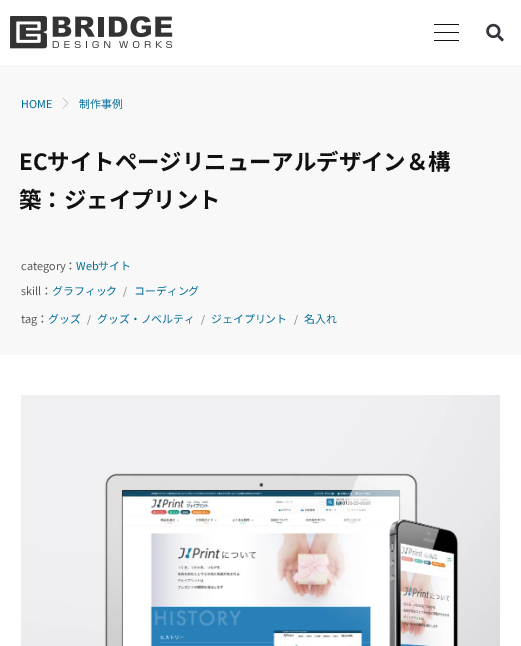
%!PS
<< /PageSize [521 646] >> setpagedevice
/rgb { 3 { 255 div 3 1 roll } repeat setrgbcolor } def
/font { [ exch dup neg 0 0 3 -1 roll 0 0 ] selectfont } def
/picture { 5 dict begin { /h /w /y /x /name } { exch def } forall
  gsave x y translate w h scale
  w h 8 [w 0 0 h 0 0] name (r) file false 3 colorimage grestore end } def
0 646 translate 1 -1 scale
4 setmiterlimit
248 248 248 rgb
0 0 521 646 rectfill
255 255 255 rgb
0 0 521 65 rectfill
(img/1.rgb) 10 16 163 33 picture
[
  [434 24 25 1 17 17 17]
  [434 32 25 1 17 17 17]
  [434 40 25 1 17 17 17]
] { aload pop rgb rectfill } forall
(img/2.rgb) 486 23 18 19 picture
(img/3.rgb) 62 98 7 11 picture
255 255 255 rgb
0 355 521 291 rectfill
(img/4.rgb) 21 395 479 251 picture
/NotoSansJP-Regular 10.9 font
0 109 153 rgb
21 108 moveto (HOME) show
79 108 moveto (制作事例) show
/NotoSansJP-Bold 22.4 font
17 17 17 rgb
19 170 moveto (ECサイトページリニューアルデザイン＆構) show
19 208 moveto (築：ジェイプリント) show
/NotoSansJP-Regular 10.9 font
88 88 88 rgb
21 270 moveto (category：) show
0 109 153 rgb
76 270 moveto (Webサイト) show
88 88 88 rgb
21 295 moveto (skill：) show
0 109 153 rgb
52 295 moveto (グラフィック) show
/NotoSansJP-Regular 10 font
116 116 116 rgb
123 295 moveto (/) show
/NotoSansJP-Regular 10.9 font
0 109 153 rgb
134 295 moveto (コーディング) show
88 88 88 rgb
21 323 moveto (tag：) show
0 109 153 rgb
48 323 moveto (グッズ) show
/NotoSansJP-Regular 10 font
116 116 116 rgb
87 323 moveto (/) show
/NotoSansJP-Regular 10.9 font
0 109 153 rgb
97 323 moveto (グッズ・ノベルティ) show
/NotoSansJP-Regular 10 font
116 116 116 rgb
201 323 moveto (/) show
/NotoSansJP-Regular 10.9 font
0 109 153 rgb
211 323 moveto (ジェイプリント) show
/NotoSansJP-Regular 10 font
116 116 116 rgb
294 323 moveto (/) show
/NotoSansJP-Regular 10.9 font
0 109 153 rgb
304 323 moveto (名入れ) show
showpage
